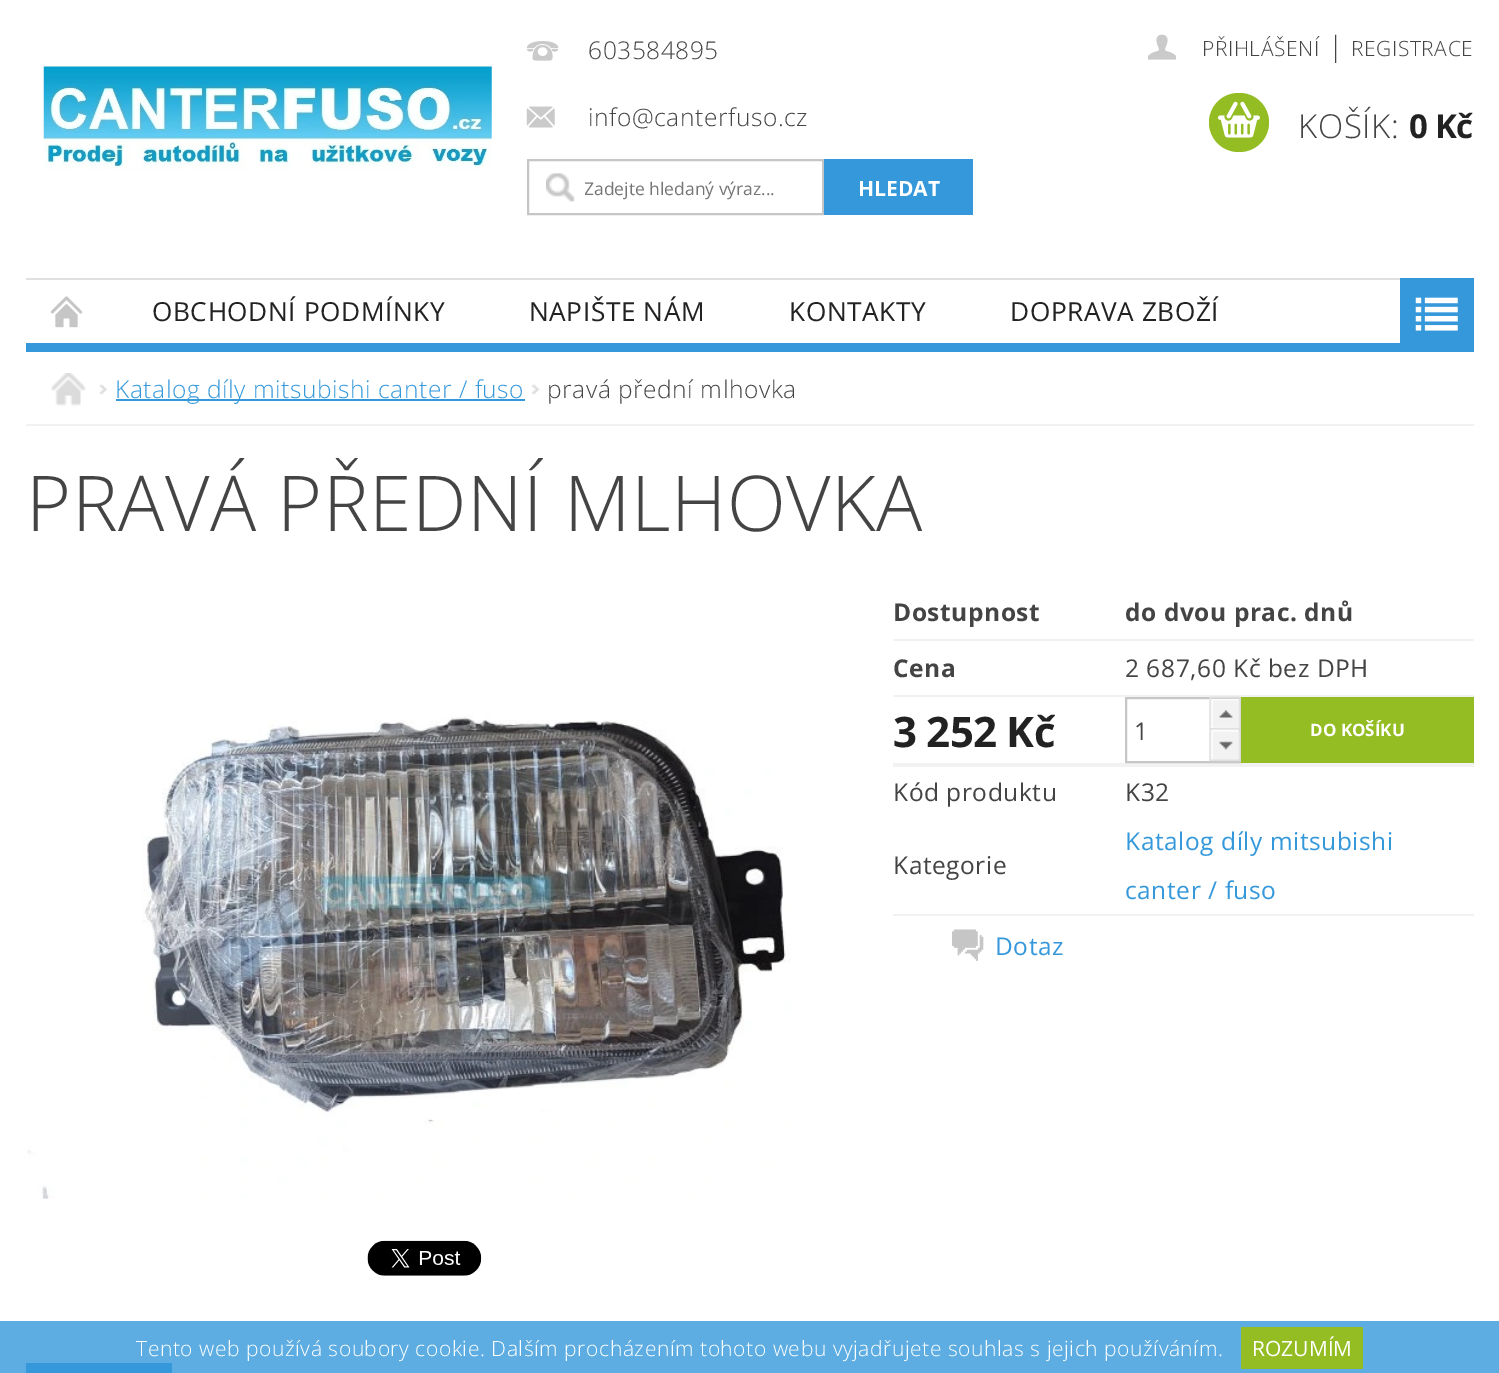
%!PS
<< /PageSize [1499 1373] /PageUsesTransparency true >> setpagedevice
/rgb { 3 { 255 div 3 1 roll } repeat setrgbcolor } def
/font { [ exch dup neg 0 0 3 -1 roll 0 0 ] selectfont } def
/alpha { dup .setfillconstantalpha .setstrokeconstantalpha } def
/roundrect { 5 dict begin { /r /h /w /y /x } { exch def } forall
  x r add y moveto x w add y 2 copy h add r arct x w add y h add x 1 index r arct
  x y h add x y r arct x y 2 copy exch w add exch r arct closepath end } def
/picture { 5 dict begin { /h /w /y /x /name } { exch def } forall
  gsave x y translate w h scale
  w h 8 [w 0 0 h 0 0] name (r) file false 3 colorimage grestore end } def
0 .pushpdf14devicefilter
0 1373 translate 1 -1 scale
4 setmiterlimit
255 255 255 rgb
0 0 1499 1373 rectfill
52 152 219 rgb
26 343 1374 9 rectfill
(img/1.rgb) 43 66 449 104 picture
(img/2.rgb) 526 41 33 20 picture
(img/3.rgb) 526 106 29 22 picture
(img/4.rgb) 546 173 29 29 picture
198 198 198 rgb
2 setlinewidth
528 160 295 54 rectstroke
52 152 219 rgb
824 159 149 56 rectfill
(img/5.rgb) 1148 34 28 26 picture
148 189 35 rgb
1209 93 60 59 29.5 roundrect fill
(img/6.rgb) 1218 101 42 37 picture
224 224 224 rgb
26 278 1374 2 rectfill
(img/7.rgb) 50 296 33 32 picture
52 152 219 rgb
1400 278 74 74 rectfill
(img/8.rgb) 1415 297 43 34 picture
242 242 242 rgb
26 424 1448 2 rectfill
(img/9.rgb) 51 373 35 33 picture
(img/10.rgb) 99 384 8 11 picture
52 152 219 rgb
116 399 409 2 rectfill
(img/11.rgb) 532 384 8 11 picture
(img/12.rgb) 27 715 764 484 picture
(img/13.rgb) 367 1240 115 36 picture
[
  [893 639 581 2 242 242 242]
  [893 695 581 2 242 242 242]
  [893 763 581 4 242 242 242]
] { aload pop rgb rectfill } forall
198 198 198 rgb
1126 698 114 64 rectstroke
(img/14.rgb) 1209 696 32 33 picture
(img/15.rgb) 1209 728 32 34 picture
148 189 35 rgb
1241 697 233 66 rectfill
242 242 242 rgb
893 914 581 2 rectfill
(img/16.rgb) 952 929 32 32 picture
[
  [26 1363 146 10 52 152 219]
] { aload pop rgb rectfill } forall
0.8 alpha
[
  [0 1321 1499 52 52 152 219]
] { aload pop rgb rectfill } forall
1 alpha
[
  [1241 1327 122 42 148 189 35]
] { aload pop rgb rectfill } forall
/OpenSans-Light 24.5 font
68 68 68 rgb
588 59 moveto 0.56 0 (603584895) ashow
588 126 moveto 0.56 0 (info@canterfuso.cz) ashow
gsave
585 175 217 25 rectclip
/OpenSans-Regular 17.5 font
117 117 117 rgb
584 195 moveto (Zadejte hledaný výraz...) show
grestore
/OpenSans-Bold 21 font
255 255 255 rgb
858 196 moveto (HLEDAT) show
/OpenSans-Light 21 font
68 68 68 rgb
1202 56 moveto 0.56 0 (PŘIHLÁŠENÍ) ashow
/OpenSans-Light 28 font
1328 56 moveto 0.56 0 (|) ashow
/OpenSans-Light 21 font
1351 56 moveto 0.56 0 (REGISTRACE) ashow
/OpenSans-Light 33 font
1298 138 moveto 0.56 0 (KOŠÍK:) ashow
/OpenSans-Bold 33 font
34 34 34 rgb
1409 138 moveto -0.75 0 (0 Kč) ashow
/OpenSans-Regular 26.25 font
152 321 moveto 0.56 0 (OBCHODNÍ PODMÍNKY) ashow
529 321 moveto 0.56 0 (NAPIŠTE NÁM) ashow
789 321 moveto 0.56 0 (KONTAKTY) ashow
1010 321 moveto 0.56 0 (DOPRAVA ZBOŽÍ) ashow
/OpenSans-Light 24.5 font
52 152 219 rgb
115 398 moveto 0.56 0 (Katalog díly mitsubishi canter / fuso) ashow
68 68 68 rgb
547 398 moveto 0.56 0 (pravá přední mlhovka) ashow
/OpenSans-Light 77 font
26 531 moveto 0.56 0 (PRAVÁ PŘEDNÍ MLHOVKA) ashow
/OpenSans-Bold 24.5 font
893 621 moveto 0.56 0 (Dostupnost) ashow
1125 621 moveto 0.56 0 (do dvou prac. dnů) ashow
893 677 moveto 0.56 0 (Cena) ashow
/OpenSans-Regular 24.5 font
1125 677 moveto 0.56 0 (2 687,60 Kč bez DPH) ashow
/OpenSans-Bold 42 font
34 34 34 rgb
893 747 moveto -0.75 0 (3 252 Kč) ashow
/OpenSans-Regular 24.5 font
68 68 68 rgb
1134 740 moveto (1) show
/OpenSans-Bold 17 font
255 255 255 rgb
1310 736 moveto (DO KOŠÍKU) show
/OpenSans-Regular 24.5 font
68 68 68 rgb
893 801 moveto 0.56 0 (Kód produktu) ashow
1125 801 moveto 0.56 0 (K32) ashow
893 874 moveto 0.56 0 (Kategorie) ashow
52 152 219 rgb
1125 850 moveto 0.56 0 (Katalog díly mitsubishi) ashow
1125 899 moveto 0.56 0 (canter / fuso) ashow
995 955 moveto 0.56 0 (Dotaz) ashow
/OpenSans-Light 21 font
255 255 255 rgb
136 1356 moveto 0.56 0 (Tento web používá soubory cookie. Dalším procházením tohoto webu vyjadřujete souhlas s jejich používáním.) ashow
/OpenSans-Regular 21 font
1252 1356 moveto (ROZUMÍM) show
.poppdf14devicefilter showpage
